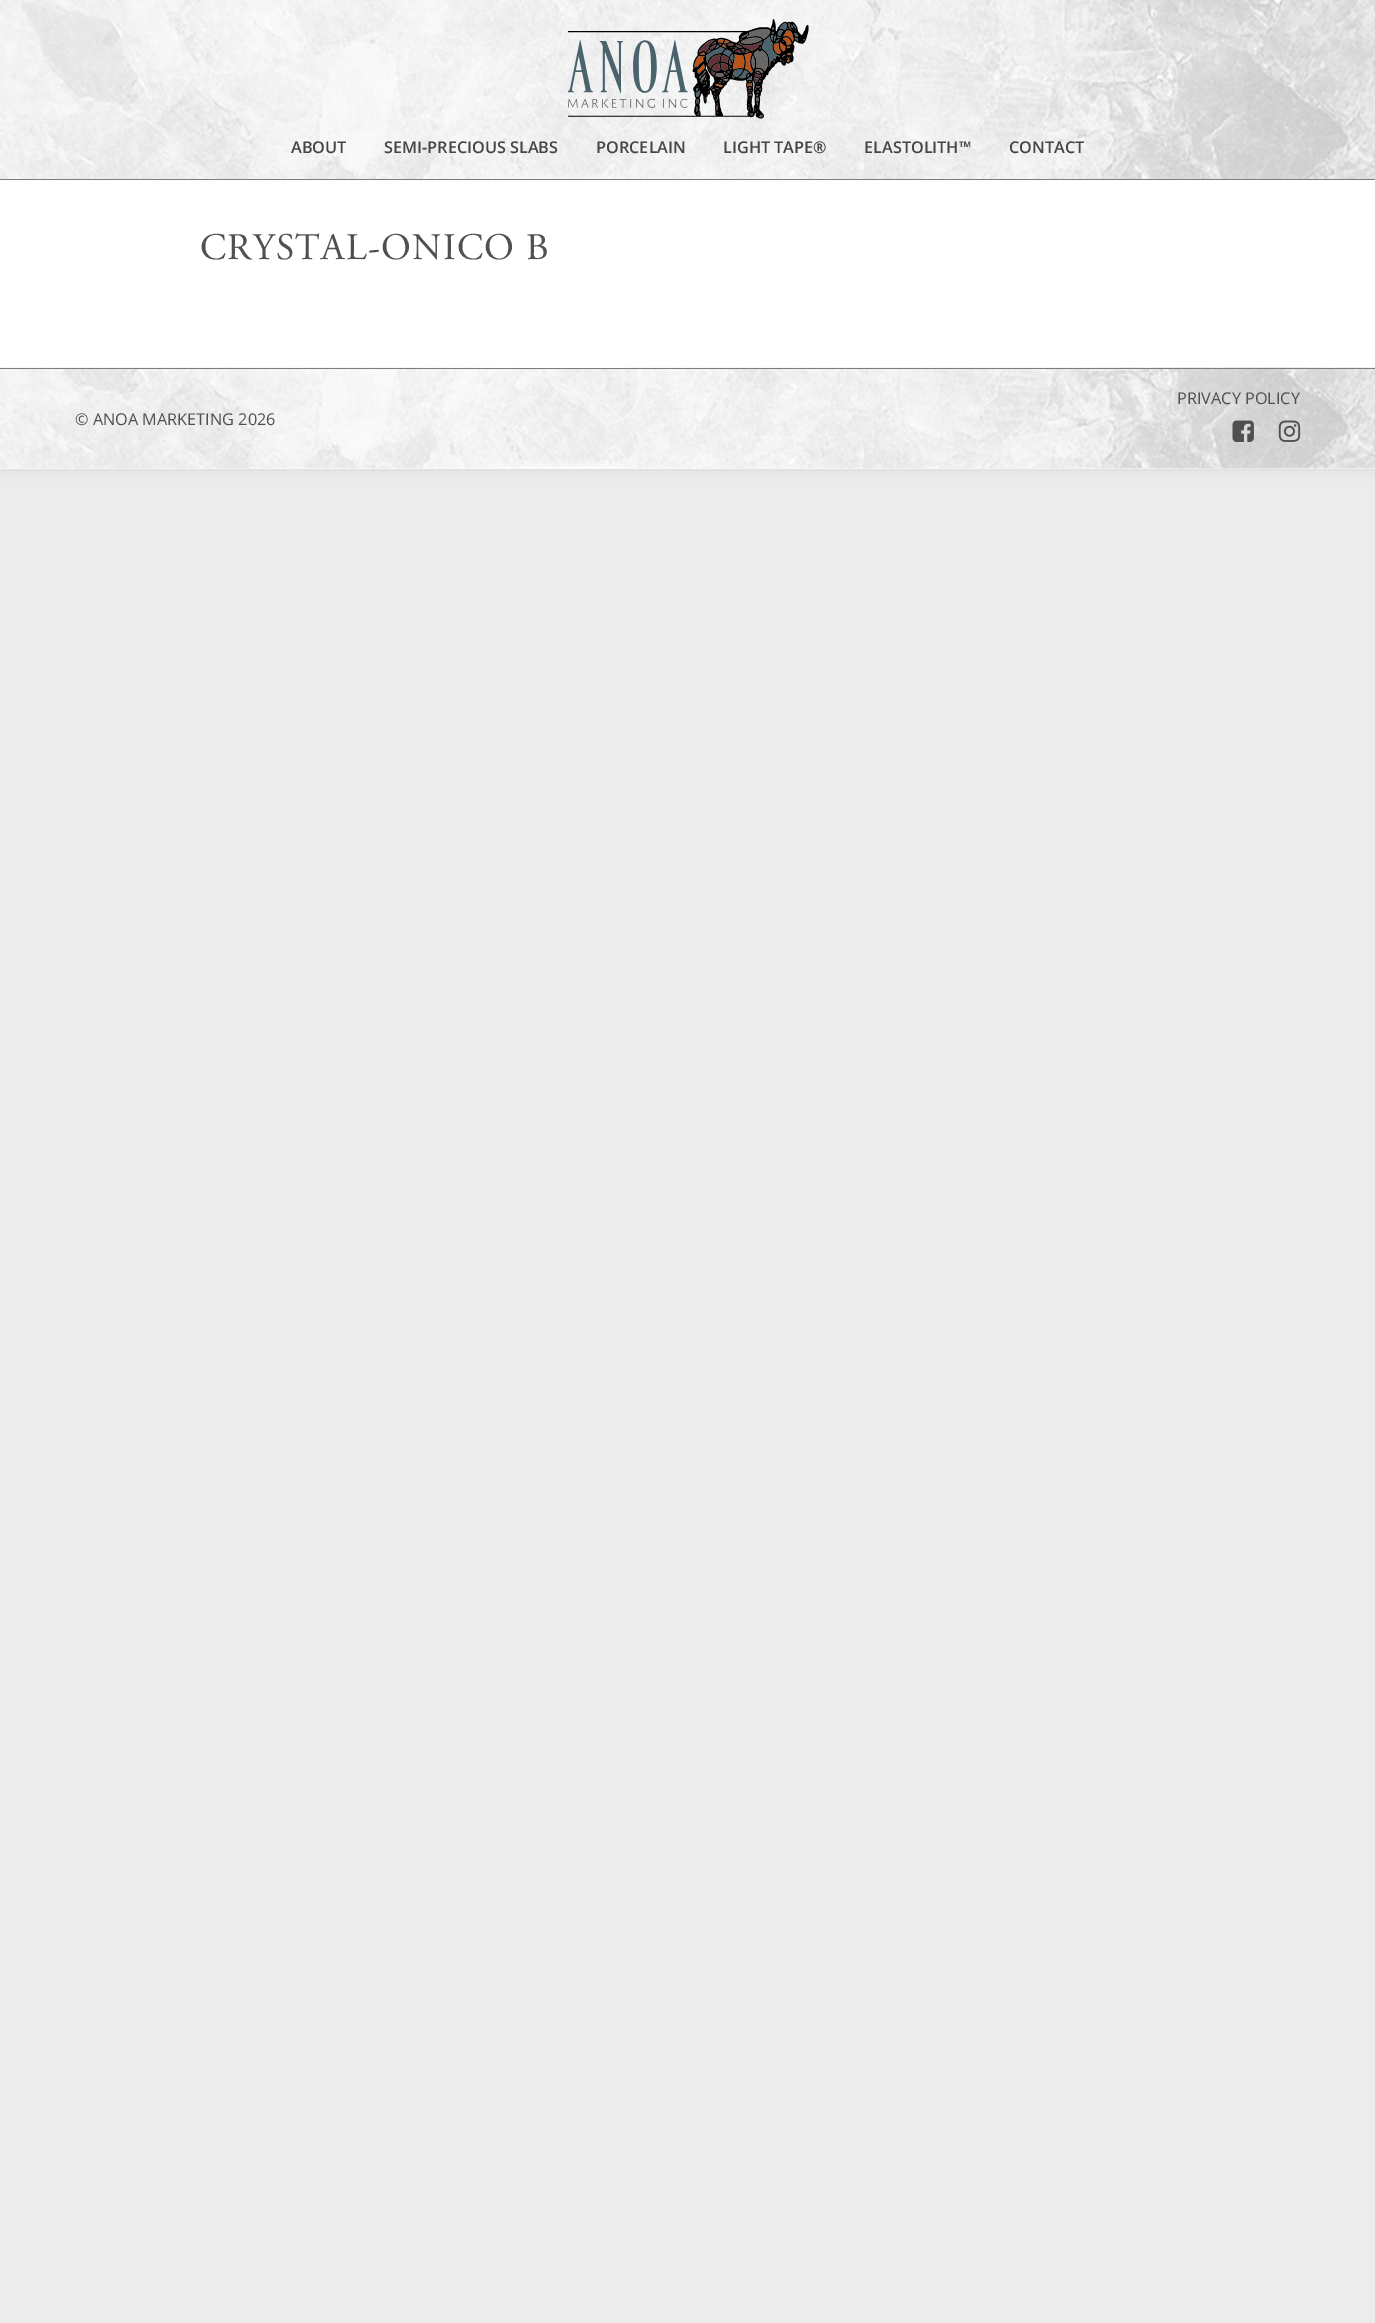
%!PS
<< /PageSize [1375 2323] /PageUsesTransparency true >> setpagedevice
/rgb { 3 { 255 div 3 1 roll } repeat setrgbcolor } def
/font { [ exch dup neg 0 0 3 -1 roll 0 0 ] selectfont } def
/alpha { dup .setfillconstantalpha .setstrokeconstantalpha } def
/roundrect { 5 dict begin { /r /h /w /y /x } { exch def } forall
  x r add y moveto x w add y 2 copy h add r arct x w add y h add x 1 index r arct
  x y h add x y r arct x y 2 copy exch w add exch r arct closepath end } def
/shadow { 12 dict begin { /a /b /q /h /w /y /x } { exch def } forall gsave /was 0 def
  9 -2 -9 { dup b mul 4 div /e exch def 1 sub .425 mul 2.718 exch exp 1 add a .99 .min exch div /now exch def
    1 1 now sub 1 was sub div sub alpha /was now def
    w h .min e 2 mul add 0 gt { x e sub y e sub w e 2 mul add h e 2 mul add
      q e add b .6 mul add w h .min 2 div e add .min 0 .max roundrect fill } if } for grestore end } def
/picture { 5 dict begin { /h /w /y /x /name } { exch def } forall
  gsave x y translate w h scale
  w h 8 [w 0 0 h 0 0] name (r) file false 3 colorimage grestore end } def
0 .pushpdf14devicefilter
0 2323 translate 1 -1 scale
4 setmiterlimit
236 236 236 rgb
0 0 1375 2323 rectfill
0 0 0 rgb
0 0 1375 469 0 6 0.08 shadow
255 255 255 rgb
0 180 1375 289 rectfill
(img/1.rgb) 0 0 1375 179 picture
124 124 124 rgb
0 179 1375 1 rectfill
(img/2.rgb) 568 19 241 100 picture
(img/3.rgb) 0 367 1375 102 picture
0 368 1375 1 rectfill
(img/4.rgb) 1232 420 22 22 picture
(img/5.rgb) 1278 420 23 22 picture
/OpenSans-SemiBold 16.25 font
70 70 70 rgb
[
  [(ABOUT) 291 153]
  [(SEMI-PRECIOUS SLABS) 384 153]
  [(PORCELAIN) 596 153]
  [(LIGHT TAPE®) 723 153]
  [(ELASTOLITH™) 864 153]
  [(CONTACT) 1009 153]
] { aload pop moveto show } forall
/AdobeGaramond-Regular 37.5 font
80 80 80 rgb
200 259 moveto 1.25 0 (CRYSTAL-ONICO B) ashow
/OpenSans-Regular 16.25 font
1177 404 moveto (PRIVACY POLICY) show
75 425 moveto (© ANOA MARKETING 2026) show
.poppdf14devicefilter showpage
